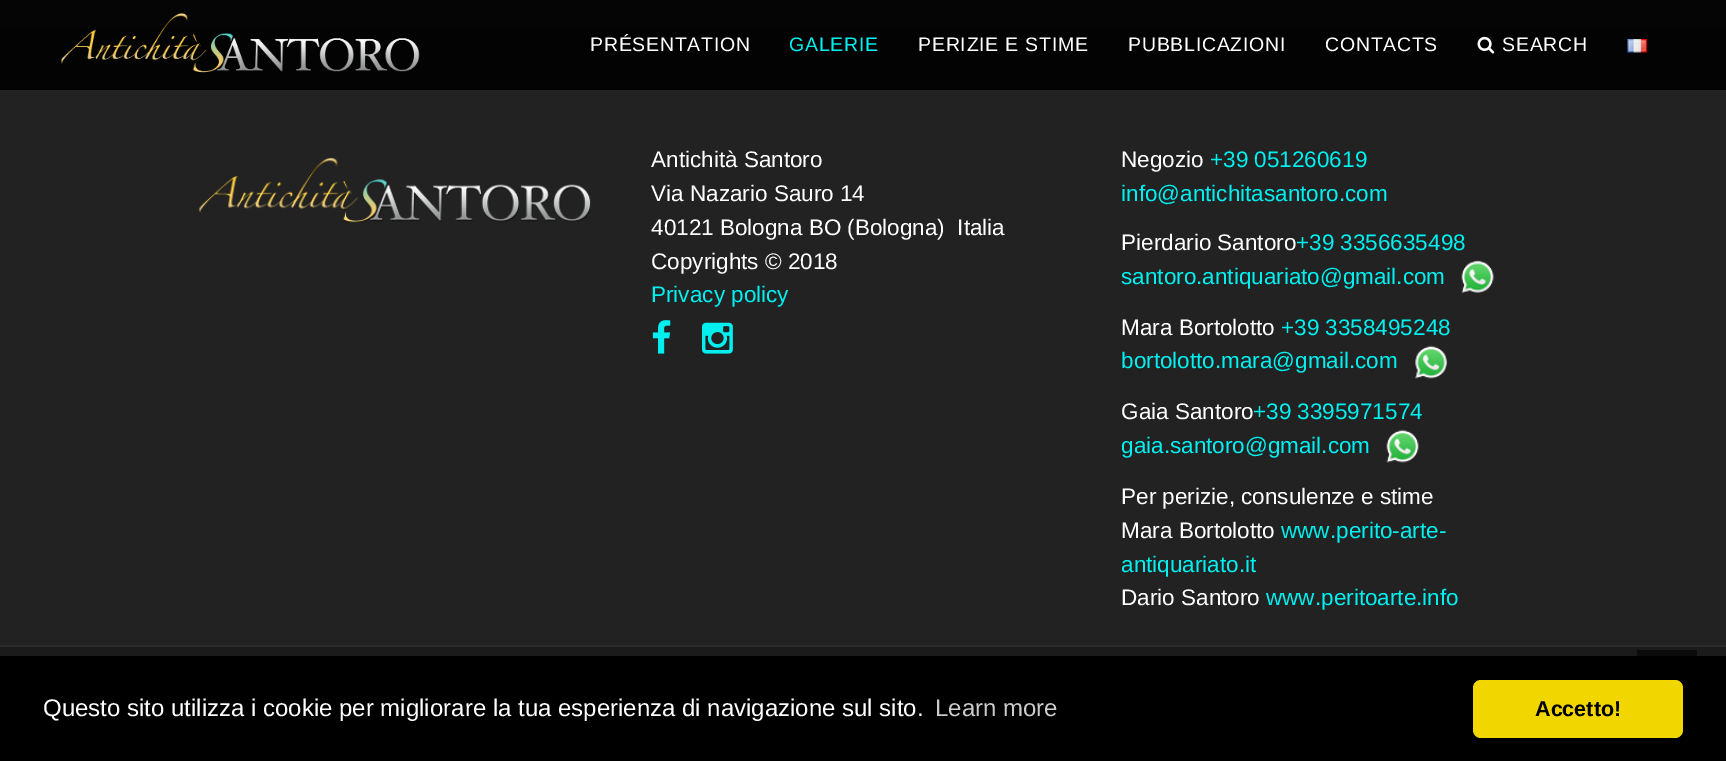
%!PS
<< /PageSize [1726 761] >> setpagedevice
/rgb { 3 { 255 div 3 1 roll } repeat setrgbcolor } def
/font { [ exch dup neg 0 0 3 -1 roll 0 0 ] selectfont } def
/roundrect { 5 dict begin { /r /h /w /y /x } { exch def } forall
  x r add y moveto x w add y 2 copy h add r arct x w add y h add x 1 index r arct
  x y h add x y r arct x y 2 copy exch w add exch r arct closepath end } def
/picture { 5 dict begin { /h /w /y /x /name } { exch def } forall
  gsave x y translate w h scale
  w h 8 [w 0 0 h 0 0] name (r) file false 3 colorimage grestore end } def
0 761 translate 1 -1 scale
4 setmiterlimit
34 34 34 rgb
0 0 1726 761 rectfill
3 3 3 rgb
0 28 1726 62 rectfill
5 5 5 rgb
0 0 1726 28 rectfill
(img/1.rgb) 60 13 360 60 picture
(img/2.rgb) 1477 36 18 18 picture
(img/3.rgb) 1627 39 20 14 picture
(img/4.rgb) 198 157 393 66 picture
(img/5.rgb) 652 320 19 34 picture
(img/6.rgb) 702 322 31 32 picture
(img/7.rgb) 1461 260 34 33 picture
(img/8.rgb) 1414 345 34 34 picture
(img/9.rgb) 1386 429 33 34 picture
[
  [0 647 1726 9 27 27 27]
  [0 645 1726 2 44 44 44]
  [1637 650 60 6 11 11 11]
  [0 656 1726 105 0 0 0]
] { aload pop rgb rectfill } forall
241 214 0 rgb
1473 680 210 58 8 roundrect fill
/LiberationSans-Regular 19.5 font
255 255 255 rgb
590 51 moveto 0.75 0 (PRÉSENTATION) ashow
0 239 239 rgb
789 51 moveto 0.75 0 (GALERIE) ashow
255 255 255 rgb
918 51 moveto 0.75 0 (PERIZIE E STIME) ashow
1128 51 moveto 0.75 0 (PUBBLICAZIONI) ashow
1325 51 moveto 0.75 0 (CONTACTS) ashow
1502 51 moveto 0.75 0 (SEARCH) ashow
/LiberationSans-Regular 22.5 font
[
  [(Antichità Santoro) 651 167]
  [(Via Nazario Sauro 14) 651 201]
  [(40121 Bologna BO \(Bologna\)  Italia) 651 235]
  [(Copyrights © 2018) 651 269]
] { aload pop moveto show } forall
0 239 239 rgb
651 302 moveto (Privacy policy) show
255 255 255 rgb
1121 167 moveto (Negozio) show
0 239 239 rgb
1210 167 moveto (+39 051260619) show
1121 201 moveto (info@antichitasantoro.com) show
255 255 255 rgb
1121 250 moveto (Pierdario Santoro) show
0 239 239 rgb
1296 250 moveto (+39 3356635498) show
1121 284 moveto (santoro.antiquariato@gmail.com) show
255 255 255 rgb
1121 335 moveto (Mara Bortolotto) show
0 239 239 rgb
1281 335 moveto (+39 3358495248) show
1121 368 moveto (bortolotto.mara@gmail.com) show
255 255 255 rgb
1121 419 moveto (Gaia Santoro) show
0 239 239 rgb
1253 419 moveto (+39 3395971574) show
1121 453 moveto (gaia.santoro@gmail.com) show
255 255 255 rgb
1121 504 moveto (Per perizie, consulenze e stime) show
1121 538 moveto (Mara Bortolotto) show
0 239 239 rgb
1281 538 moveto (www.perito-arte-) show
1121 572 moveto (antiquariato.it) show
255 255 255 rgb
1121 605 moveto (Dario Santoro) show
0 239 239 rgb
1266 605 moveto (www.peritoarte.info) show
/LiberationSans-Regular 24 font
255 255 255 rgb
43 716 moveto (Questo sito utilizza i cookie per migliorare la tua esperienza di navigazione sul sito.) show
204 204 204 rgb
935 716 moveto (Learn more) show
/LiberationSans-Bold 21.5 font
0 0 0 rgb
1535 716 moveto (Accetto!) show
showpage
